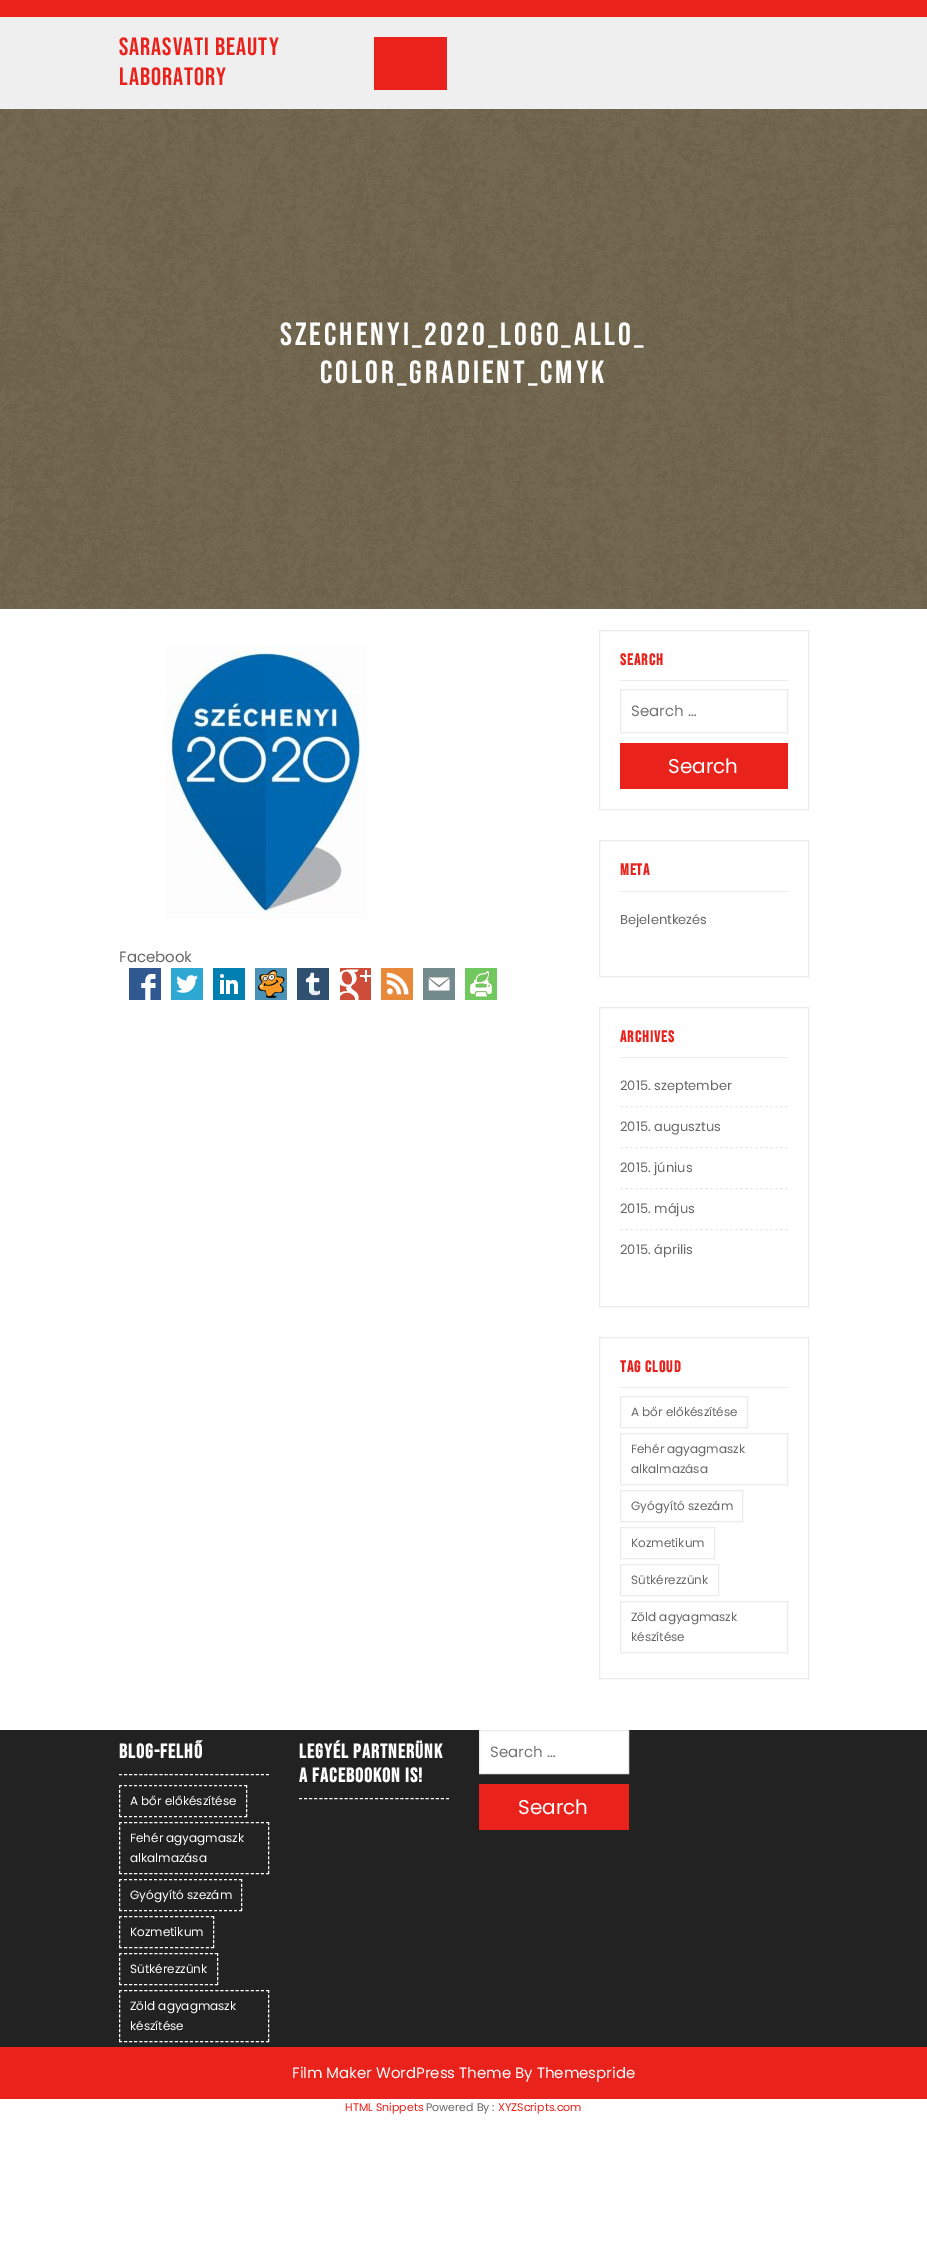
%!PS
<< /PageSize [927 2251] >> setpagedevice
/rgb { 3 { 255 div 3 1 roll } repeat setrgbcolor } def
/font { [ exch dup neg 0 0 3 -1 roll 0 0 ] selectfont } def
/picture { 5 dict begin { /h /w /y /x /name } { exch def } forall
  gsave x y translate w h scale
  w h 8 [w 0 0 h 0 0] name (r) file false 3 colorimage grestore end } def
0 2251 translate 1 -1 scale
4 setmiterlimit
255 255 255 rgb
0 0 927 2251 rectfill
[
  [0 0 927 17 234 34 28]
  [0 17 927 92 239 239 239]
  [374 37 73 53 234 34 28]
  [0 109 927 500 0 0 0]
] { aload pop rgb rectfill } forall
(img/1.rgb) 0 109 927 500 picture
(img/2.rgb) 166 645 201 274 picture
(img/3.rgb) 129 968 32 32 picture
(img/4.rgb) 171 968 32 32 picture
(img/5.rgb) 213 968 32 32 picture
(img/6.rgb) 255 968 32 32 picture
(img/7.rgb) 297 968 32 32 picture
(img/8.rgb) 340 968 31 32 picture
(img/9.rgb) 381 968 32 32 picture
(img/10.rgb) 423 968 32 32 picture
(img/11.rgb) 465 968 32 32 picture
235 235 235 rgb
599.5 630.5 209 179 rectstroke
620 680 168 1 rectfill
620.5 689.5 167 43 rectstroke
234 34 28 rgb
620 743 168 46 rectfill
235 235 235 rgb
599.5 840.5 209 136 rectstroke
620 891 168 1 rectfill
599.5 1007.5 209 299 rectstroke
620 1057 168 1 rectfill
[3 2] 0 setdash
620 1106.5 moveto 788 1106.5 lineto stroke
620 1147.5 moveto 788 1147.5 lineto stroke
620 1188.5 moveto 788 1188.5 lineto stroke
620 1229.5 moveto 788 1229.5 lineto stroke
[] 0 setdash
599.5 1337.5 209 341 rectstroke
620 1387 168 1 rectfill
620.5 1396.5 127 31 rectstroke
620.5 1433.5 167 51 rectstroke
620.5 1490.5 122 31 rectstroke
620.5 1527.5 94 31 rectstroke
620.5 1564.5 98 31 rectstroke
620.5 1601.5 167 51 rectstroke
34 34 34 rgb
0 1730 927 317 rectfill
255 255 255 rgb
[3 2.07] 0 setdash
119 1774.5 moveto 269 1774.5 lineto stroke
[3 2] 0 setdash
119 1785.5 moveto 247 1785.5 lineto stroke
[3 1.83] 0 setdash
246.5 1785 moveto 246.5 1817 lineto stroke
[3 2] 0 setdash
119 1816.5 moveto 247 1816.5 lineto stroke
[3 1.83] 0 setdash
119.5 1785 moveto 119.5 1817 lineto stroke
[3 2.07] 0 setdash
119 1822.5 moveto 269 1822.5 lineto stroke
[3 1.9] 0 setdash
268.5 1822 moveto 268.5 1874 lineto stroke
[3 2.07] 0 setdash
119 1873.5 moveto 269 1873.5 lineto stroke
[3 1.9] 0 setdash
119.5 1822 moveto 119.5 1874 lineto stroke
[3 2] 0 setdash
119 1879.5 moveto 242 1879.5 lineto stroke
[3 1.83] 0 setdash
241.5 1879 moveto 241.5 1911 lineto stroke
[3 2] 0 setdash
119 1910.5 moveto 242 1910.5 lineto stroke
[3 1.83] 0 setdash
119.5 1879 moveto 119.5 1911 lineto stroke
[3 2.11] 0 setdash
119 1916.5 moveto 214 1916.5 lineto stroke
[3 1.83] 0 setdash
213.5 1916 moveto 213.5 1948 lineto stroke
[3 2.11] 0 setdash
119 1947.5 moveto 214 1947.5 lineto stroke
[3 1.83] 0 setdash
119.5 1916 moveto 119.5 1948 lineto stroke
[3 2.05] 0 setdash
119 1953.5 moveto 218 1953.5 lineto stroke
[3 1.83] 0 setdash
217.5 1953 moveto 217.5 1985 lineto stroke
[3 2.05] 0 setdash
119 1984.5 moveto 218 1984.5 lineto stroke
[3 1.83] 0 setdash
119.5 1953 moveto 119.5 1985 lineto stroke
[3 2.07] 0 setdash
119 1990.5 moveto 269 1990.5 lineto stroke
[3 1.9] 0 setdash
268.5 1990 moveto 268.5 2042 lineto stroke
[3 2.07] 0 setdash
119 2041.5 moveto 269 2041.5 lineto stroke
[3 1.9] 0 setdash
119.5 1990 moveto 119.5 2042 lineto stroke
[3 2.07] 0 setdash
299 1798.5 moveto 449 1798.5 lineto stroke
479.5 1730.5 moveto 628.5 1730.5 lineto 628.5 1773.5 lineto 479.5 1773.5 lineto closepath gsave fill grestore
235 235 235 rgb
[] 0 setdash
stroke
234 34 28 rgb
479 1784 150 46 rectfill
0 2047 927 52 rectfill
/BebasNeue-Regular 25 font
119 55 moveto 1 0 (SARASVATI BEAUTY) ashow
119 85 moveto 1 0 (LABORATORY) ashow
/BebasNeue-Regular 32 font
255 255 255 rgb
280 345 moveto 3 0 (SZECHENYI_2020_LOGO_ALLO_) ashow
320 383 moveto 3 0 (COLOR_GRADIENT_CMYK) ashow
/Poppins-Regular 15 font
103 103 103 rgb
119 962 moveto (Facebook) show
/BebasNeue-Bold 16 font
234 34 28 rgb
620 665 moveto 1 0 (Search) ashow
/Poppins-Regular 15 font
117 117 117 rgb
631 716 moveto (Search …) show
/Poppins-Regular 20 font
255 255 255 rgb
668 773 moveto (Search) show
/BebasNeue-Bold 16 font
234 34 28 rgb
620 875 moveto 1 0 (Meta) ashow
/Poppins-Regular 13 font
103 103 103 rgb
620 924 moveto (Bejelentkezés) show
/BebasNeue-Bold 16 font
234 34 28 rgb
620 1042 moveto 1 0 (Archives) ashow
/Poppins-Regular 13 font
103 103 103 rgb
[
  [(2015. szeptember) 620 1090]
  [(2015. augusztus) 620 1131]
  [(2015. június) 620 1172]
  [(2015. május) 620 1213]
  [(2015. április) 620 1254]
] { aload pop moveto show } forall
/BebasNeue-Bold 16 font
234 34 28 rgb
620 1372 moveto 1 0 (Tag Cloud) ashow
/Poppins-Regular 12 font
103 103 103 rgb
[
  [(A bőr előkészítése) 631 1416]
  [(Fehér agyagmaszk) 631 1453]
  [(alkalmazása) 631 1473]
  [(Gyógyító szezám) 631 1510]
  [(Kozmetikum) 631 1547]
  [(Sütkérezzünk) 631 1584]
  [(Zöld agyagmaszk) 631 1621]
  [(készítése) 631 1641]
] { aload pop moveto show } forall
/BebasNeue-Bold 20 font
255 255 255 rgb
119 1758 moveto 1 0 (Blog-felhő) ashow
/Poppins-Regular 12 font
[
  [(A bőr előkészítése) 130 1805]
  [(Fehér agyagmaszk) 130 1842]
  [(alkalmazása) 130 1862]
  [(Gyógyító szezám) 130 1899]
  [(Kozmetikum) 130 1936]
  [(Sütkérezzünk) 130 1973]
  [(Zöld agyagmaszk) 130 2010]
  [(készítése) 130 2030]
] { aload pop moveto show } forall
/BebasNeue-Bold 20 font
299 1758 moveto 1 0 (Legyél partnerünk) ashow
299 1782 moveto 1 0 (a Facebookon is!) ashow
/Poppins-Regular 15 font
117 117 117 rgb
490 1757 moveto (Search …) show
/Poppins-Regular 20 font
255 255 255 rgb
518 1814 moveto (Search) show
/Poppins-Regular 15 font
292 2078 moveto (Film Maker WordPress Theme By Themespride) show
/Poppins-Regular 11 font
234 34 28 rgb
345 2111 moveto (HTML Snippets) show
103 103 103 rgb
426 2111 moveto (Powered By :) show
234 34 28 rgb
498 2111 moveto (XYZScripts.com) show
showpage
